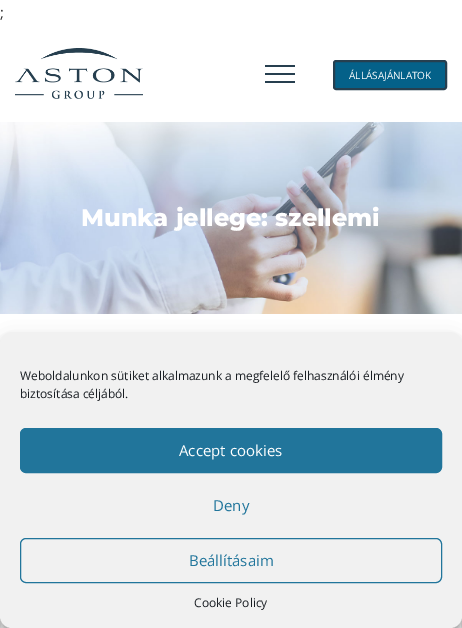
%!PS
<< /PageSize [462 628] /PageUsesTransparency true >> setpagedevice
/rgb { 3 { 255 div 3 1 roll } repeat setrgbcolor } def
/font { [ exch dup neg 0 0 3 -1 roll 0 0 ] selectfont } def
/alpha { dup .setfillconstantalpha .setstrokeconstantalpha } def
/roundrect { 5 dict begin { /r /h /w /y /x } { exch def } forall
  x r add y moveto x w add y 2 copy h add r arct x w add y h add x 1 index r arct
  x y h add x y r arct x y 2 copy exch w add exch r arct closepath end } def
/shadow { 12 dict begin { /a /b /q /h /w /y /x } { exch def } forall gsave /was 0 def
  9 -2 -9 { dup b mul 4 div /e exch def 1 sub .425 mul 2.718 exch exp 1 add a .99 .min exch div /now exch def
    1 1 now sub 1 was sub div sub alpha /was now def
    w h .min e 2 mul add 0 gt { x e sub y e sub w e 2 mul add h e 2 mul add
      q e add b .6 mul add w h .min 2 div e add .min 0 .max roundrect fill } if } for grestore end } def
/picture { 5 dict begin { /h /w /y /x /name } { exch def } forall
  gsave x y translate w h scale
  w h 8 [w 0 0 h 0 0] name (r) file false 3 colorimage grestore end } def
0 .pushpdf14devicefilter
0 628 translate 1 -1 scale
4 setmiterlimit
255 255 255 rgb
0 0 462 628 rectfill
(img/1.rgb) 15 48 128 51 picture
[
  [265 65 30 2 38 63 79]
  [265 73 30 2 38 63 79]
  [265 81 30 2 38 63 79]
] { aload pop rgb rectfill } forall
4 97 137 rgb
334 61 112 28 2 roundrect gsave fill grestore
38 63 79 rgb
2 setlinewidth
stroke
(img/2.rgb) 0 122 462 192 picture
237 237 237 rgb
1 setlinewidth
0.5 537.5 461 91 rectstroke
0 0 0 rgb
0 338 462 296 12 3 0.23 shadow
0 342 462 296 12 10 0.19 shadow
241 241 241 rgb
0 332 462 296 12 roundrect fill
33 117 155 rgb
20.5 428.5 421 44 5.5 roundrect gsave fill grestore
stroke
20.5 538.5 421 44 5.5 roundrect stroke
/OpenSans-Regular 15 font
54 54 54 rgb
0 18 moveto (;) show
/OpenSans-Regular 10 font
255 255 255 rgb
349 79 moveto (ÁLLÁSAJÁNLATOK) show
/Montserrat-ExtraBold 24 font
81 226 moveto (Munka jellege: szellemi) show
/OpenSans-Regular 12 font
25 30 35 rgb
20 380 moveto (Weboldalunkon sütiket alkalmazunk a megfelelő felhasználói élmény) show
20 398 moveto (biztosítása céljából.) show
/OpenSans-Regular 15 font
255 255 255 rgb
179 456 moveto (Accept cookies) show
33 117 155 rgb
213 511 moveto (Deny) show
189 566 moveto (Beállításaim) show
/OpenSans-Regular 12 font
25 30 35 rgb
194 607 moveto (Cookie Policy) show
.poppdf14devicefilter showpage
